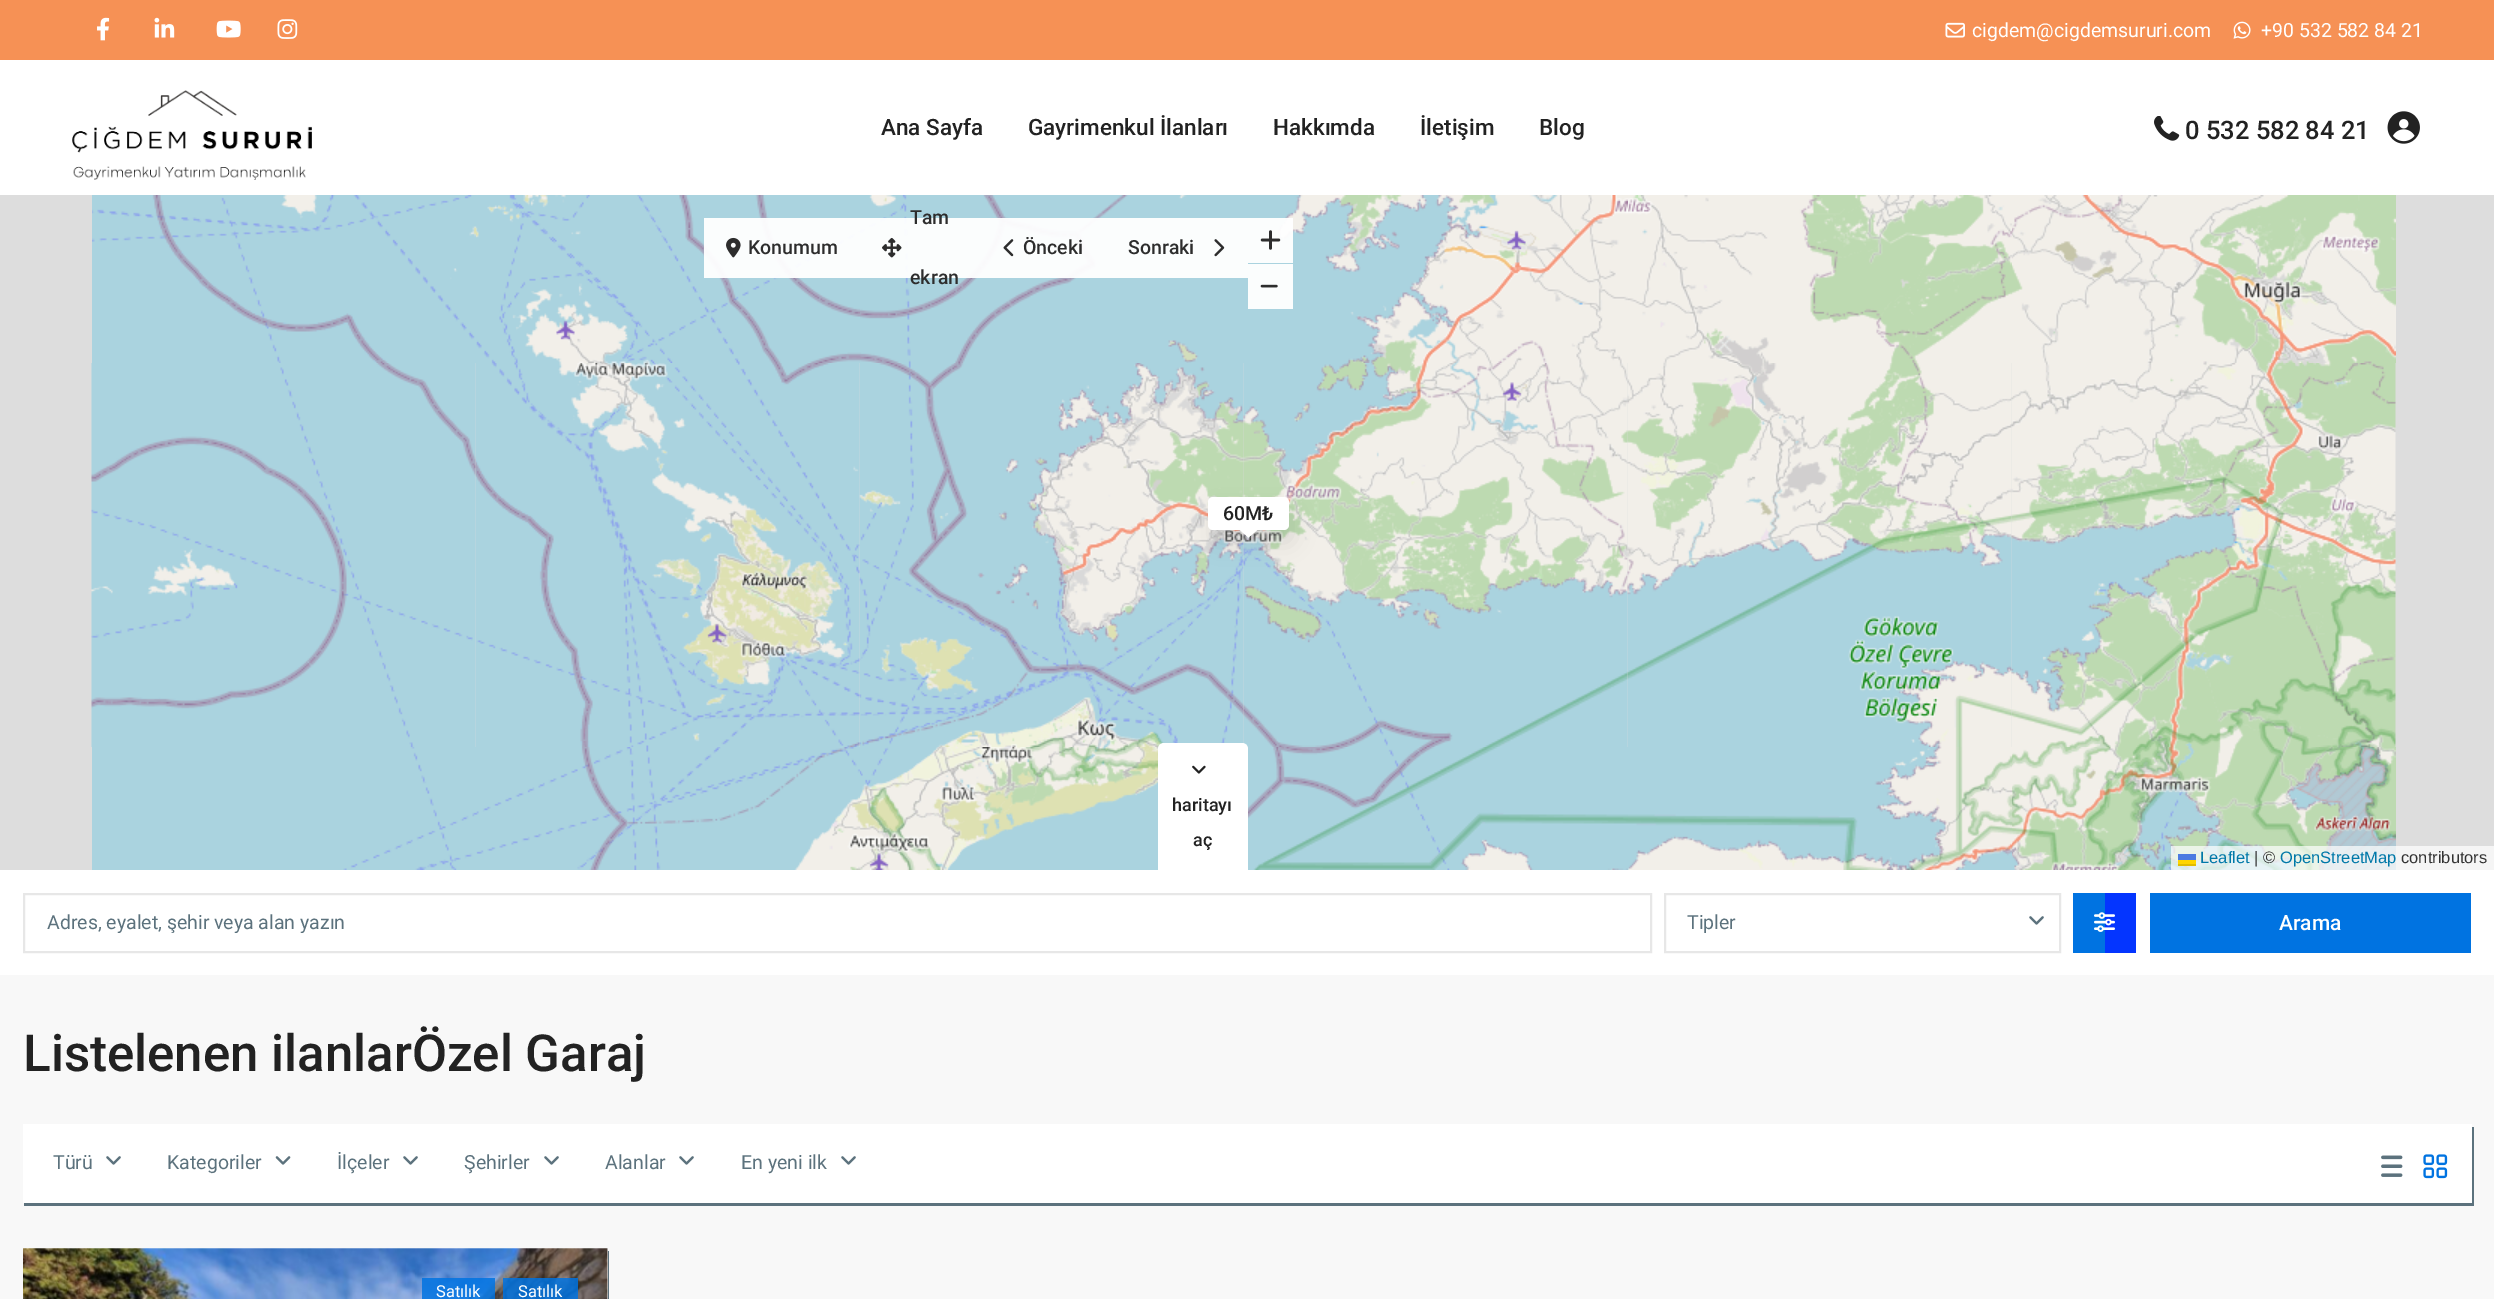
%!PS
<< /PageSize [2494 1299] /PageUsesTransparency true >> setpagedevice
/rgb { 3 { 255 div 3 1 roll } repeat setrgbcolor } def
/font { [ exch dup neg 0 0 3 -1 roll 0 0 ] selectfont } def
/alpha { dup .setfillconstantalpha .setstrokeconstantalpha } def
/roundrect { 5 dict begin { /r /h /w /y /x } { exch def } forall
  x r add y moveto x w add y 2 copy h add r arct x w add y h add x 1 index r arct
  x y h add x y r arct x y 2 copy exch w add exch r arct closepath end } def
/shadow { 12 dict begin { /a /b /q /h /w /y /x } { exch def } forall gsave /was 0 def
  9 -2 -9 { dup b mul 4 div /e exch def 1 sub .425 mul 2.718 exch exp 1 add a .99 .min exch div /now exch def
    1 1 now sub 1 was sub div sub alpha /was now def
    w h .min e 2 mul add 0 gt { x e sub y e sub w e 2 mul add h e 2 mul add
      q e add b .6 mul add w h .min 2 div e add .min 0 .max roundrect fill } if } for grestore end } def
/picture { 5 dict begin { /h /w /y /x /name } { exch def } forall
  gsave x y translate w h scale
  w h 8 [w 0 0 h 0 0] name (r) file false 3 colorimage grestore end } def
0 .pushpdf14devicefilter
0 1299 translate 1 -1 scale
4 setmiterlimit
248 248 248 rgb
0 0 2494 1299 rectfill
246 145 85 rgb
0 0 2494 60 rectfill
(img/1.rgb) 97 17 13 24 picture
(img/2.rgb) 154 17 21 21 picture
(img/3.rgb) 216 20 25 18 picture
(img/4.rgb) 277 19 21 20 picture
(img/5.rgb) 1945 22 20 16 picture
(img/6.rgb) 2233 21 18 18 picture
255 255 255 rgb
0 60 2494 135 rectfill
(img/7.rgb) 72 90 240 90 picture
(img/8.rgb) 2154 116 26 25 picture
(img/9.rgb) 2387 111 33 33 picture
221 221 221 rgb
0 195 2494 675 rectfill
(img/18.rgb) 476 195 384 168 picture
(img/19.rgb) 860 195 384 168 picture
(img/20.rgb) 1244 195 384 168 picture
0.95 alpha
255 255 255 rgb
704 218 544 60 rectfill
1 alpha
(img/10.rgb) 726 237 15 21 picture
(img/11.rgb) 882 237 20 21 picture
(img/12.rgb) 1003 239 11 18 picture
(img/13.rgb) 1214 239 11 18 picture
0.95 alpha
1248 218 45 45 rectfill
1 alpha
(img/14.rgb) 1260 230 21 20 picture
0.95 alpha
1248 264 45 45 rectfill
1 alpha
(img/15.rgb) 1260 284 18 4 picture
(img/25.rgb) 859 363 385 384 picture
(img/26.rgb) 1243 363 385 384 picture
(img/31.rgb) 860 747 299 123 picture
(img/32.rgb) 1247 747 381 123 picture
1164 743 moveto 1242 743 lineto 1245.5 743 1248 745.5 1248 749 curveto 1248 870 lineto 1158 870 lineto 1158 749 lineto 1158 745.5 1160.5 743 1164 743 curveto closepath fill
(img/16.rgb) 1192 765 14 9 picture
(img/17.rgb) 92 195 384 168 picture
(img/21.rgb) 1628 195 384 168 picture
(img/22.rgb) 2012 195 384 168 picture
(img/24.rgb) 475 363 385 384 picture
(img/23.rgb) 91 363 385 384 picture
(img/27.rgb) 1627 363 385 384 picture
(img/28.rgb) 2011 363 385 384 picture
(img/29.rgb) 92 747 384 123 picture
(img/30.rgb) 476 747 384 123 picture
(img/33.rgb) 1628 747 384 123 picture
(img/34.rgb) 2012 747 384 123 picture
0 0 0 rgb
1214 512 78 30 3 11 0.1 shadow
255 255 255 rgb
1208 497 81 33 5 roundrect fill
1238 528.5 moveto 1259 528.5 lineto 1248.5 537.5 lineto closepath fill
0.7 alpha
[
  [2171 846 323 24 255 255 255]
] { aload pop rgb rectfill } forall
1 alpha
[
  [2178 854 18 6 76 123 225]
  [2178 860 18 4 255 213 0]
  [2178 864 18 2 224 188 0]
  [0 870 2494 105 255 255 255]
] { aload pop rgb rectfill } forall
231 231 231 rgb
2 setlinewidth
24 894 1627 58 rectstroke
1665 894 395 58 rectstroke
(img/35.rgb) 2029 916 15 9 picture
0 115 225 rgb
2073 893 32 60 rectfill
4 53 255 rgb
2105 893 31 60 rectfill
(img/36.rgb) 2094 912 21 20 picture
0 115 225 rgb
2150 893 321 60 rectfill
92 114 125 rgb
24 1203 moveto 24 1206 lineto 2474 1206 lineto 2474 1127 lineto 2472 1127 lineto 2472 1203 lineto closepath fill
255 255 255 rgb
23 1124 2449 79 rectfill
(img/35.rgb) 106 1156 15 9 picture
(img/37.rgb) 275 1156 16 9 picture
(img/35.rgb) 403 1156 15 9 picture
(img/35.rgb) 544 1156 15 9 picture
(img/35.rgb) 679 1156 15 9 picture
(img/35.rgb) 841 1156 15 9 picture
(img/38.rgb) 2381 1155 22 22 picture
(img/39.rgb) 2423 1154 25 25 picture
92 114 125 rgb
24 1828 moveto 24 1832 lineto 609 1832 lineto 609 1251 lineto 608 1251 lineto 608 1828 lineto closepath fill
255 255 255 rgb
23 1248 585 51 rectfill
(img/40.rgb) 23 1248 585 51 picture
0.85 alpha
0 115 225 rgb
422 1278 73 21 rectfill
503 1278 75 21 rectfill
/Roboto-Regular 19.5 font
1 alpha
255 255 255 rgb
1972 37 moveto (cigdem@cigdemsururi.com) show
2261 37 moveto (+90 532 582 84 21) show
/Roboto-Medium 22.5 font
34 34 34 rgb
[
  [(Ana Sayfa) 881 135]
  [(Gayrimenkul İlanları) 1028 135]
  [(Hakkımda) 1273 135]
  [(İletişim) 1420 135]
  [(Blog) 1539 135]
] { aload pop moveto show } forall
/Roboto-Medium 25.5 font
2185 139 moveto (0 532 582 84 21) show
/Roboto-Medium 19.5 font
45 45 45 rgb
[
  [(Konumum) 748 254]
  [(Tam) 910 224]
  [(ekran) 910 284]
  [(Önceki) 1023 254]
  [(Sonraki) 1128 254]
] { aload pop moveto show } forall
/Roboto-Medium 18 font
34 34 34 rgb
1172 811 moveto (haritayı) show
1193 846 moveto (aç) show
/Roboto-Medium 19.5 font
1223 520 moveto (60M₺) show
/LiberationSans-Regular 16.5 font
0 120 168 rgb
2200 863 moveto (Leaflet) show
51 51 51 rgb
2254 863 moveto (| ©) show
0 120 168 rgb
2280 863 moveto (OpenStreetMap) show
51 51 51 rgb
2401 863 moveto (contributors) show
gsave
47 911 1581 22 rectclip
/Roboto-Regular 19.5 font
92 114 125 rgb
47 929 moveto (Adres, eyalet, şehir veya alan yazın) show
grestore
/Roboto-Regular 19.5 font
92 114 125 rgb
1687 929 moveto (Tipler) show
/Roboto-Medium 21 font
255 255 255 rgb
2279 930 moveto (Arama) show
/Roboto-Medium 51 font
34 34 34 rgb
23 1071 moveto (Listelenen ilanlarÖzel Garaj) show
/Roboto-Regular 19.5 font
92 114 125 rgb
[
  [(Türü) 53 1169]
  [(Kategoriler) 167 1169]
  [(İlçeler) 337 1169]
  [(Şehirler) 464 1169]
  [(Alanlar) 605 1169]
  [(En yeni ilk) 741 1169]
] { aload pop moveto show } forall
/Roboto-Regular 16.5 font
255 255 255 rgb
436 1297 moveto (Satılık) show
518 1297 moveto (Satılık) show
.poppdf14devicefilter showpage
